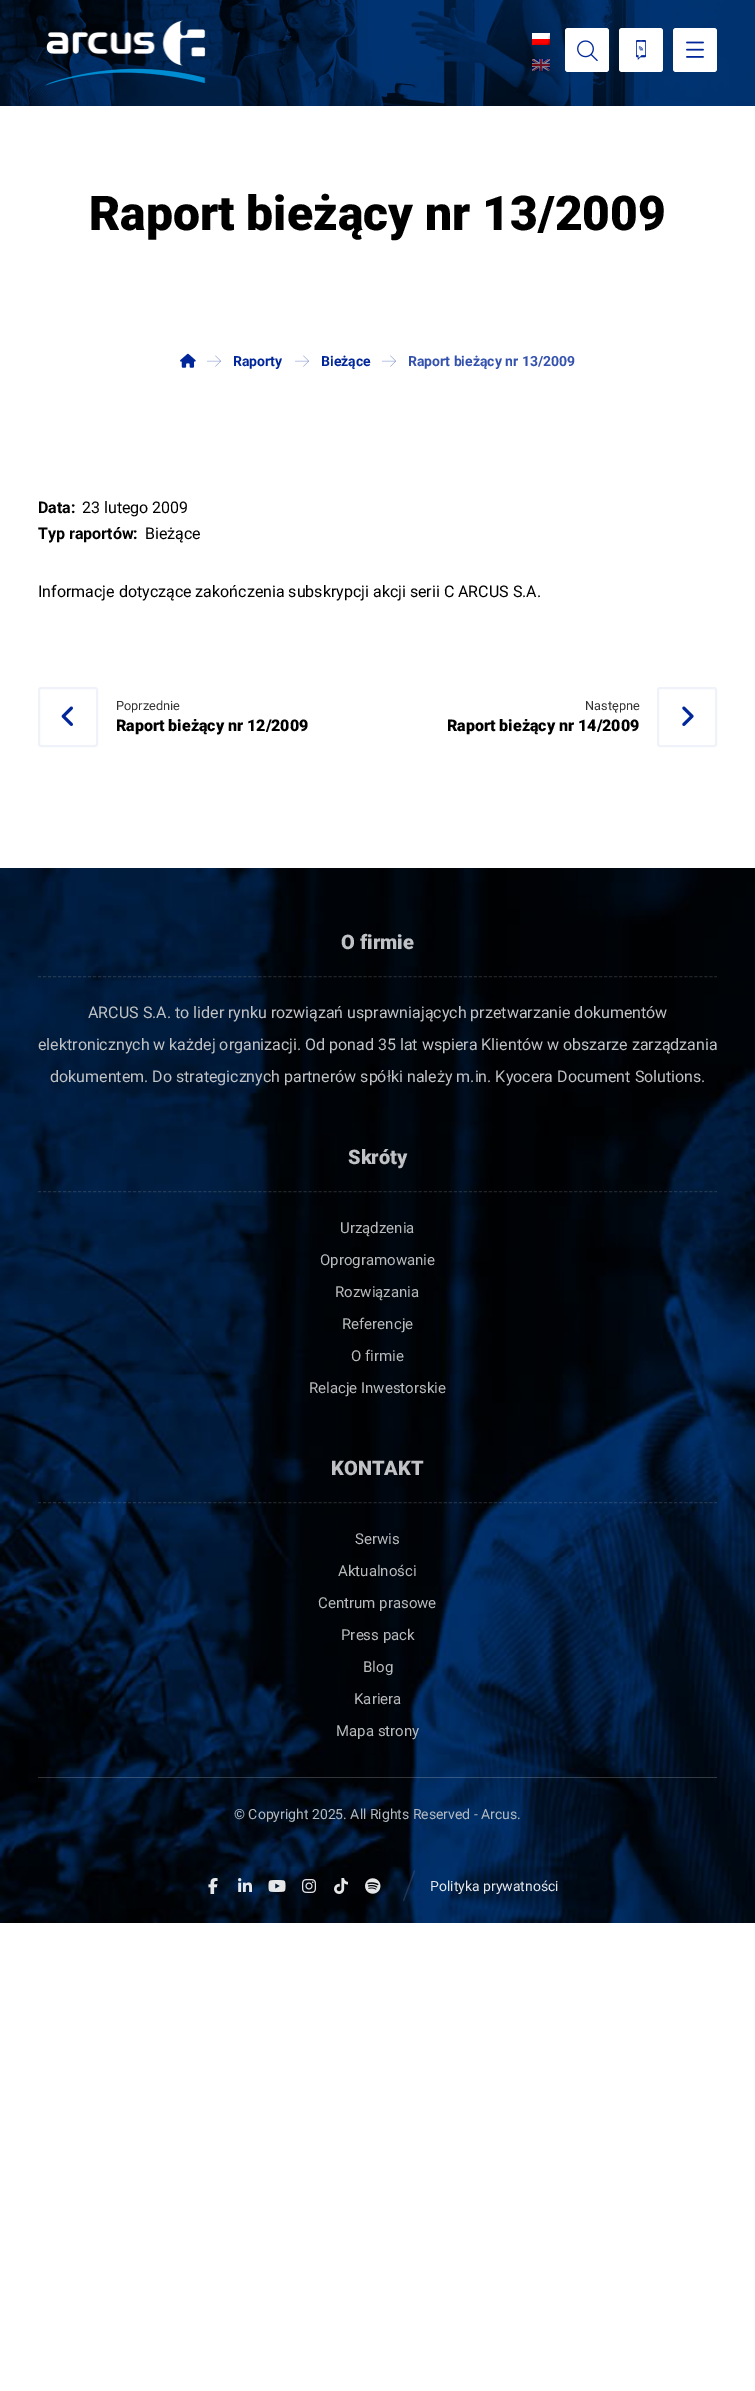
%!PS
<< /PageSize [755 2391] /PageUsesTransparency true >> setpagedevice
/rgb { 3 { 255 div 3 1 roll } repeat setrgbcolor } def
/font { [ exch dup neg 0 0 3 -1 roll 0 0 ] selectfont } def
/alpha { dup .setfillconstantalpha .setstrokeconstantalpha } def
/roundrect { 5 dict begin { /r /h /w /y /x } { exch def } forall
  x r add y moveto x w add y 2 copy h add r arct x w add y h add x 1 index r arct
  x y h add x y r arct x y 2 copy exch w add exch r arct closepath end } def
/picture { 5 dict begin { /h /w /y /x /name } { exch def } forall
  gsave x y translate w h scale
  w h 8 [w 0 0 h 0 0] name (r) file false 3 colorimage grestore end } def
0 .pushpdf14devicefilter
0 2391 translate 1 -1 scale
4 setmiterlimit
255 255 255 rgb
0 0 755 2391 rectfill
(img/1.rgb) 0 0 755 106 picture
(img/2.rgb) 45 20 161 66 picture
(img/3.rgb) 532 33 18 12 picture
(img/4.rgb) 532 59 18 12 picture
565 28 44 44 3 roundrect fill
(img/5.rgb) 577 40 21 22 picture
619 28 44 44 3 roundrect fill
(img/6.rgb) 636 40 10 20 picture
673 28 44 44 3 roundrect fill
(img/7.rgb) 686 41 18 17 picture
(img/8.rgb) 180 353 16 15 picture
(img/9.rgb) 207 355 14 12 picture
(img/9.rgb) 295 355 14 12 picture
(img/9.rgb) 382 355 14 12 picture
240 242 249 rgb
2 setlinewidth
39 688 58 58 2 roundrect stroke
(img/10.rgb) 61 706 12 20 picture
658 688 58 58 2 roundrect stroke
(img/11.rgb) 682 706 12 20 picture
(img/12.rgb) 0 868 755 1055 picture
0.2 alpha
167 167 167 rgb
1 setlinewidth
[3 2.01] 0 setdash
38 976.5 moveto 717 976.5 lineto stroke
38 1191.5 moveto 717 1191.5 lineto stroke
38 1502.5 moveto 717 1502.5 lineto stroke
255 255 255 rgb
38 1777 679 1 rectfill
1 alpha
(img/13.rgb) 208 1878 10 16 picture
(img/14.rgb) 238 1878 14 14 picture
(img/15.rgb) 268 1880 18 12 picture
(img/16.rgb) 302 1879 14 14 picture
(img/17.rgb) 334 1878 14 16 picture
(img/18.rgb) 365 1878 16 16 picture
0.2 alpha
167 167 167 rgb
414 1870.5 moveto 415 1871 lineto 404 1901 lineto 403 1900.5 lineto closepath fill
/Roboto-Black 48 font
1 alpha
0 0 0 rgb
89 230 moveto (Raport bieżący nr 13/2009) show
/Roboto-Bold 14 font
0 38 153 rgb
233 366 moveto (Raporty) show
321 366 moveto (Bieżące) show
51 81 173 rgb
408 366 moveto (Raport bieżący nr 13/2009) show
/Roboto-Bold 16 font
0 0 0 rgb
38 513 moveto (Data:) show
/Roboto-Regular 16 font
82 513 moveto (23 lutego 2009) show
/Roboto-Bold 16 font
38 539 moveto (Typ raportów:) show
/Roboto-Regular 16 font
145 539 moveto (Bieżące) show
38 597 moveto (Informacje dotyczące zakończenia subskrypcji akcji serii C ARCUS S.A.) show
/Roboto-Regular 12.75 font
51 51 51 rgb
116 710 moveto (Poprzednie) show
/Roboto-Black 16 font
0 0 0 rgb
116 731 moveto (Raport bieżący nr 12/2009) show
/Roboto-Regular 12.75 font
51 51 51 rgb
585 710 moveto (Następne) show
/Roboto-Black 16 font
0 0 0 rgb
447 731 moveto (Raport bieżący nr 14/2009) show
/Roboto-Black 20 font
192 194 197 rgb
341 949 moveto (O firmie) show
/Roboto-Regular 16 font
[
  [(ARCUS S.A. to lider rynku rozwiązań usprawniających przetwarzanie dokumentów) 88 1018]
  [(elektronicznych w każdej organizacji. Od ponad 35 lat wspiera Klientów w obszarze zarządzania) 38 1050]
  [(dokumentem. Do strategicznych partnerów spółki należy m.in. Kyocera Document Solutions.) 50 1082]
] { aload pop moveto show } forall
/Roboto-Black 20 font
348 1164 moveto (Skróty) show
/Roboto-Regular 15 font
184 186 187 rgb
[
  [(Urządzenia) 340 1233]
  [(Oprogramowanie) 320 1265]
  [(Rozwiązania) 335 1297]
  [(Referencje) 342 1329]
  [(O firmie) 351 1361]
  [(Relacje Inwestorskie) 309 1393]
] { aload pop moveto show } forall
/Roboto-Black 20 font
192 194 197 rgb
331 1475 moveto (KONTAKT) show
/Roboto-Regular 15 font
184 186 187 rgb
[
  [(Serwis) 355 1544]
  [(Aktualności) 338 1576]
  [(Centrum prasowe) 318 1608]
  [(Press pack) 341 1640]
  [(Blog) 363 1672]
  [(Kariera) 354 1704]
  [(Mapa strony) 336 1736]
] { aload pop moveto show } forall
/Roboto-Regular 14 font
179 186 194 rgb
234 1819 moveto (© Copyright 2025. All Rights Reserved - Arcus.) show
230 232 236 rgb
430 1891 moveto (Polityka prywatności) show
.poppdf14devicefilter showpage
